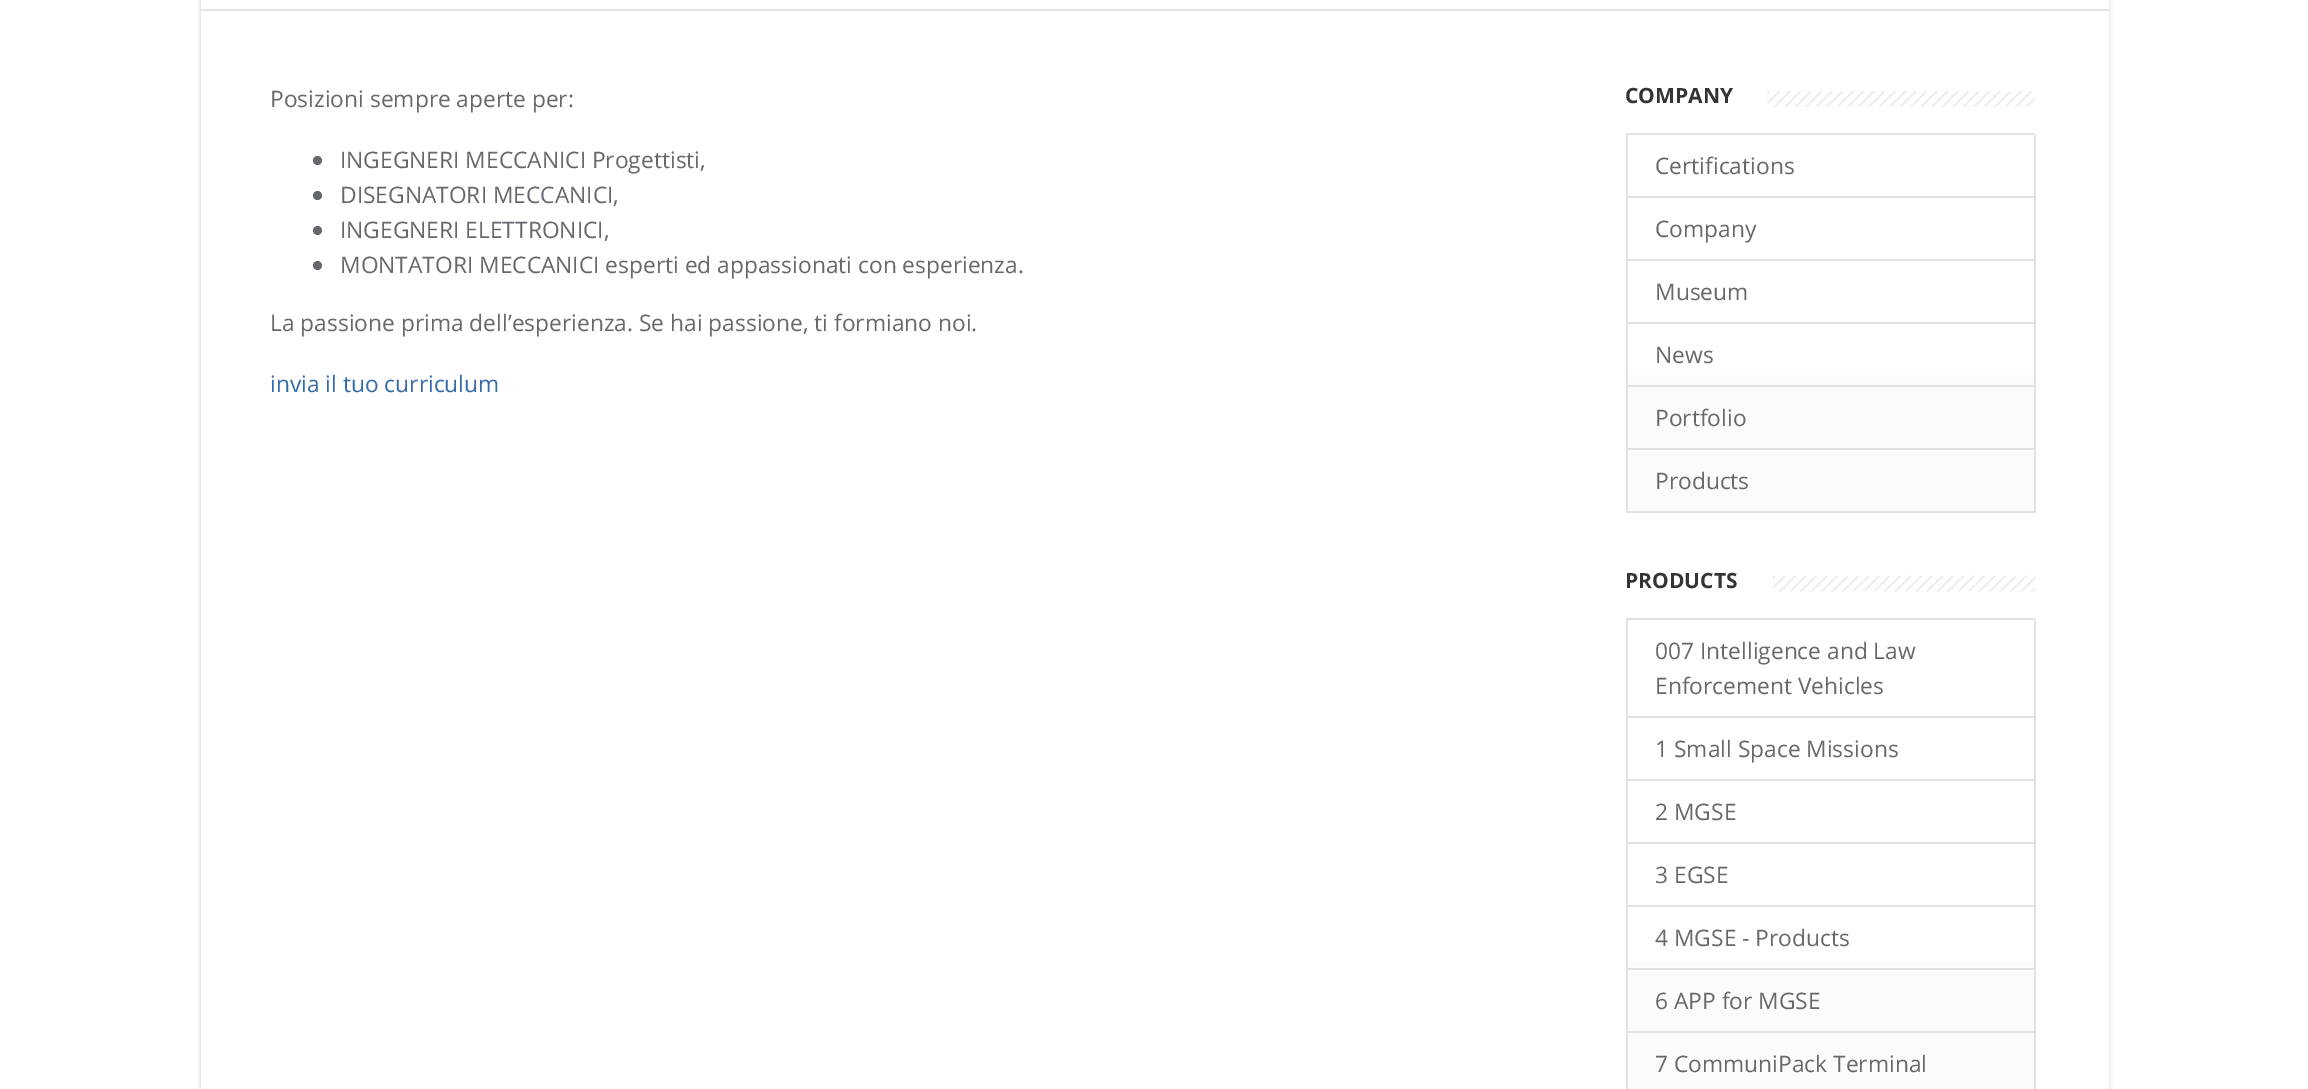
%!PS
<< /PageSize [2308 1089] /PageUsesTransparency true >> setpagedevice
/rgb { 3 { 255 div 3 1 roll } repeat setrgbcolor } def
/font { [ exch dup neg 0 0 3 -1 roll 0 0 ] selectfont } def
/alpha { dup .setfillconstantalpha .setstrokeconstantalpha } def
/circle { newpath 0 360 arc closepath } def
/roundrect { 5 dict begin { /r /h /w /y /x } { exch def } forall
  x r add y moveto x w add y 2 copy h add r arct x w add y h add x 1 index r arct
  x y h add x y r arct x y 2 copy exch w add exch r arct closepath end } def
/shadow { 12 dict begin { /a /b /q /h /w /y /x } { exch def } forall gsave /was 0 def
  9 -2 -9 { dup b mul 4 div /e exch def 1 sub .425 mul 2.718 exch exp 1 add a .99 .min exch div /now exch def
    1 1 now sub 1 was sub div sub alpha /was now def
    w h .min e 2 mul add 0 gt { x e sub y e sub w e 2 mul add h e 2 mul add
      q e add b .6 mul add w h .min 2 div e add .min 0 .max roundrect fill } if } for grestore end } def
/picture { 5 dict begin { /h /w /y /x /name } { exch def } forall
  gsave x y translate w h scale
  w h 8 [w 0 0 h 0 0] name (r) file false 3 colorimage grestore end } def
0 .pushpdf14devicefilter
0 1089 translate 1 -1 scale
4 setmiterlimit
255 255 255 rgb
0 0 2308 1089 rectfill
0 0 0 rgb
201 -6 1908 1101 0 2 0.2 shadow
255 255 255 rgb
201 0 1908 1089 rectfill
228 228 228 rgb
201 9 1908 2 rectfill
101 104 109 rgb
317.5 160.5 4.5 circle fill
317.5 195.5 4.5 circle fill
317.5 230.5 4.5 circle fill
317.5 265.5 4.5 circle fill
(img/1.rgb) 1767 91 269 16 picture
gsave 1628 374 moveto 2034 374 lineto 2034 511 lineto 1628 511 lineto closepath clip newpath
<< /ShadingType 2 /ColorSpace /DeviceRGB /Coords [1831 135 1831 513] /Extend [true true] /Function << /FunctionType 3 /Domain [0 1] /Functions [<< /FunctionType 2 /Domain [0 1] /C0 [1 1 1] /C1 [1 1 1] /N 1 >> << /FunctionType 2 /Domain [0 1] /C0 [1 1 1] /C1 [0.984 0.984 0.984] /N 1 >>] /Bounds [0.02] /Encode [0 1 0 1] >> >> shfill grestore
[
  [1626 133 409 2 226 226 226]
  [2034 135 2 378 226 226 226]
  [1626 196 409 2 226 226 226]
  [1626 135 2 63 226 226 226]
  [1626 259 409 2 226 226 226]
  [1626 198 2 63 226 226 226]
  [1626 322 409 2 226 226 226]
  [1626 261 2 63 226 226 226]
  [1626 385 409 2 226 226 226]
  [1626 324 2 63 226 226 226]
  [1626 448 409 2 226 226 226]
  [1626 387 2 63 226 226 226]
  [1626 511 409 2 226 226 226]
  [1626 450 2 63 226 226 226]
] { aload pop rgb rectfill } forall
(img/2.rgb) 1772 575 264 17 picture
gsave 1628 961 moveto 2034 961 lineto 2034 1089 lineto 1628 1089 lineto closepath clip newpath
<< /ShadingType 2 /ColorSpace /DeviceRGB /Coords [1831 620 1831 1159] /Extend [true true] /Function << /FunctionType 3 /Domain [0 1] /Functions [<< /FunctionType 2 /Domain [0 1] /C0 [1 1 1] /C1 [1 1 1] /N 1 >> << /FunctionType 2 /Domain [0 1] /C0 [1 1 1] /C1 [0.984 0.984 0.984] /N 1 >>] /Bounds [0.02] /Encode [0 1 0 1] >> >> shfill grestore
[
  [1626 618 409 2 226 226 226]
  [2034 620 2 469 226 226 226]
  [1626 716 409 2 226 226 226]
  [1626 620 2 98 226 226 226]
  [1626 779 409 2 226 226 226]
  [1626 718 2 63 226 226 226]
  [1626 842 409 2 226 226 226]
  [1626 781 2 63 226 226 226]
  [1626 905 409 2 226 226 226]
  [1626 844 2 63 226 226 226]
  [1626 968 409 2 226 226 226]
  [1626 907 2 63 226 226 226]
  [1626 1031 409 2 226 226 226]
  [1626 970 2 119 226 226 226]
] { aload pop rgb rectfill } forall
/OpenSans-Regular 22.75 font
101 104 109 rgb
[
  [(Posizioni sempre aperte per:) 270 107]
  [(INGEGNERI MECCANICI Progettisti,) 340 168]
  [(DISEGNATORI MECCANICI,) 340 203]
  [(INGEGNERI ELETTRONICI,) 340 238]
  [(MONTATORI MECCANICI esperti ed appassionati con esperienza.) 340 273]
  [(La passione prima dell’esperienza. Se hai passione, ti formiano noi.) 270 331]
] { aload pop moveto show } forall
53 107 168 rgb
270 392 moveto (invia il tuo curriculum) show
/OpenSans-Bold 21 font
49 53 56 rgb
1625 103 moveto (COMPANY) show
/OpenSans-Regular 22.75 font
101 104 109 rgb
[
  [(Certifications) 1655 174]
  [(Company) 1655 237]
  [(Museum) 1655 300]
  [(News) 1655 363]
  [(Portfolio) 1655 426]
  [(Products) 1655 489]
] { aload pop moveto show } forall
/OpenSans-Bold 21 font
49 53 56 rgb
1625 588 moveto (PRODUCTS) show
/OpenSans-Regular 22.75 font
101 104 109 rgb
[
  [(007 Intelligence and Law) 1655 659]
  [(Enforcement Vehicles) 1655 694]
  [(1 Small Space Missions) 1655 757]
  [(2 MGSE) 1655 820]
  [(3 EGSE) 1655 883]
  [(4 MGSE - Products) 1655 946]
  [(6 APP for MGSE) 1655 1009]
  [(7 CommuniPack Terminal) 1655 1072]
] { aload pop moveto show } forall
.poppdf14devicefilter showpage
